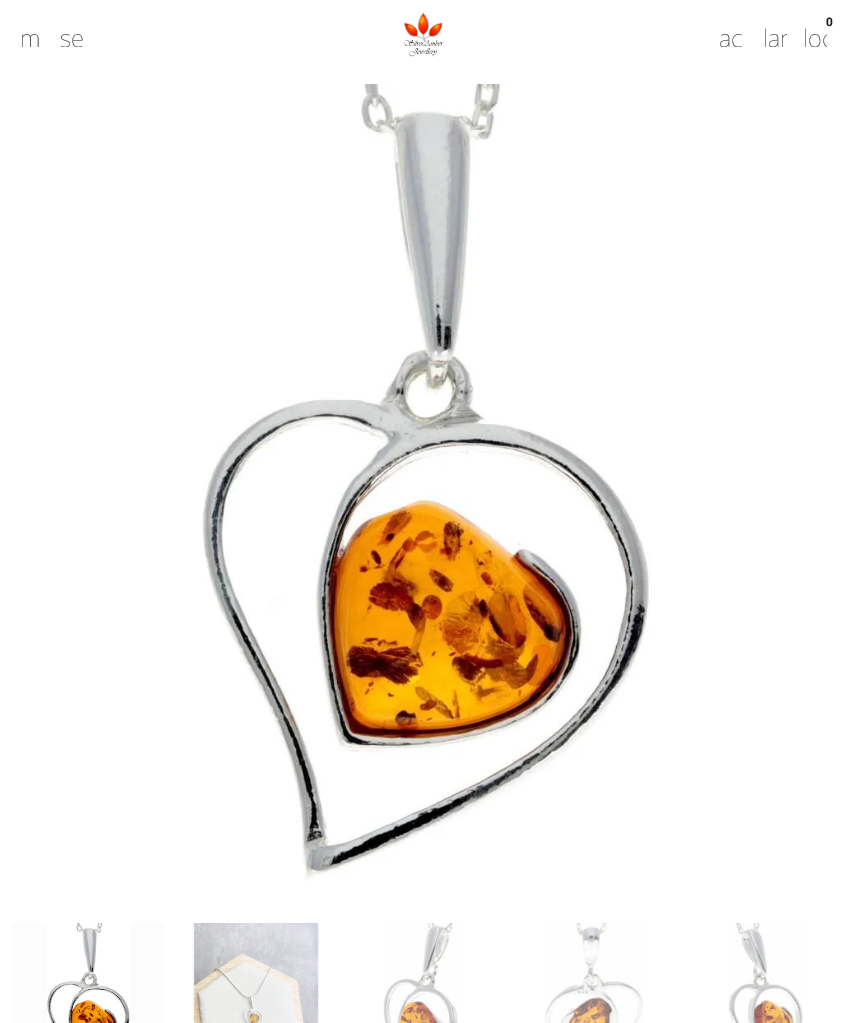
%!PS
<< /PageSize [847 1023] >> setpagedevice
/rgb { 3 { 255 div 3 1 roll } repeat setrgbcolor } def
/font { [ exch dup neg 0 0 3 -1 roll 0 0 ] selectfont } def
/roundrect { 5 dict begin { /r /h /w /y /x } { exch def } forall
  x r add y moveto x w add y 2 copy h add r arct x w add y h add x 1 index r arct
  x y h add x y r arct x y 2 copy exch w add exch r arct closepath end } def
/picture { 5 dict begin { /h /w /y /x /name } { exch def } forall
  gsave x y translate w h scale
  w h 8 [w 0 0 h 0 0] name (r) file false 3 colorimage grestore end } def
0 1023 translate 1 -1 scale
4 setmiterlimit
255 255 255 rgb
0 0 847 1023 rectfill
(img/1.rgb) 404 12 40 45 picture
(img/2.rgb) 201 84 450 797 picture
252 252 252 rgb
12 923 152 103 3 roundrect fill
(img/3.rgb) 47 923 83 100 picture
(img/4.rgb) 192 923 127 100 picture
(img/5.rgb) 383 923 75 100 picture
(img/6.rgb) 545 923 98 100 picture
(img/7.rgb) 728 923 75 100 picture
/NotoSans-Thin 24 font
32 32 32 rgb
20 47 moveto (m) show
gsave
60 23 24 24 rectclip
60 47 moveto (se) show
grestore
gsave
719 23 24 24 rectclip
719 47 moveto (ac) show
grestore
gsave
763 23 24 24 rectclip
763 47 moveto (lan) show
grestore
/Barlow-Bold 12 font
826 26 moveto (0) show
gsave
803 23 24 24 rectclip
/NotoSans-Thin 24 font
803 47 moveto (loc) show
grestore
showpage
